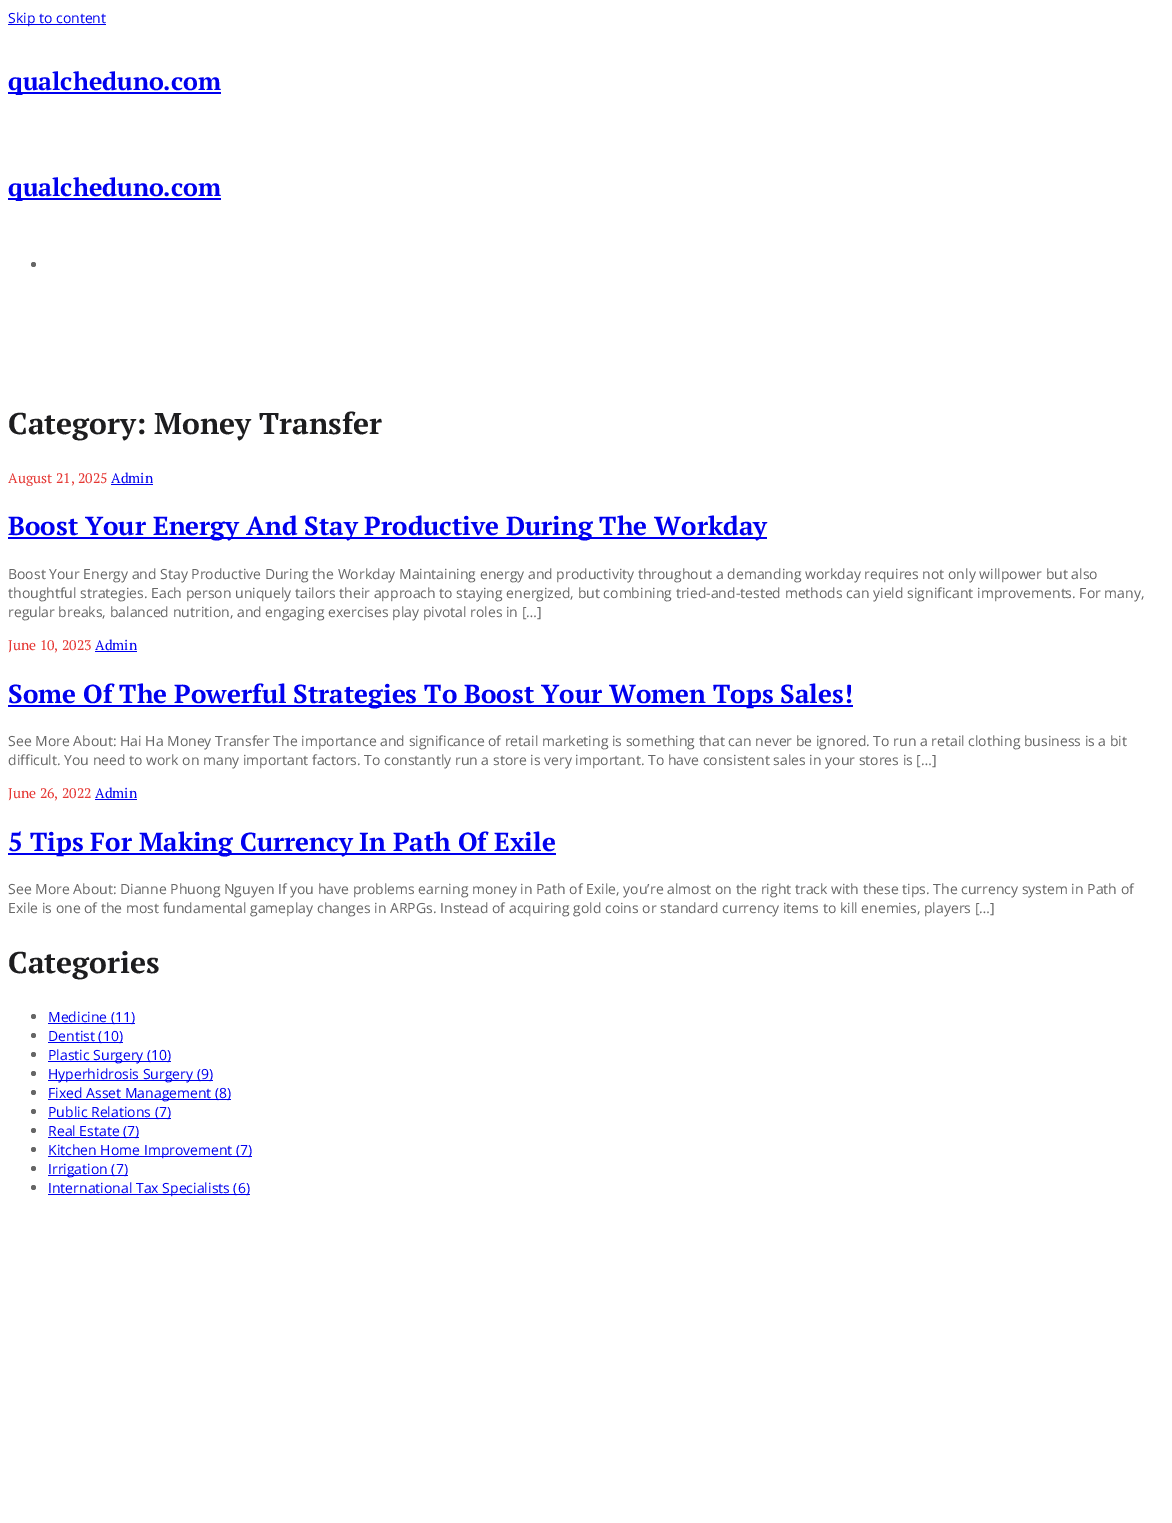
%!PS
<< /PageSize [1172 1523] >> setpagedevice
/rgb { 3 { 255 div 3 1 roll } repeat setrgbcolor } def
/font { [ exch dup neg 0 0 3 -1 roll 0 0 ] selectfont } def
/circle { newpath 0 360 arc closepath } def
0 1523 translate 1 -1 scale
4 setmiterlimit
255 255 255 rgb
0 0 1172 1523 rectfill
[
  [8 24 98 1 0 0 238]
  [8 92 213 2 0 0 238]
  [8 198 213 2 0 0 238]
] { aload pop rgb rectfill } forall
102 102 102 rgb
33.5 264.5 2.5 circle fill
[
  [111 484 42 1 0 0 238]
  [8 537 759 2 0 0 238]
  [95 651 42 1 0 0 238]
  [8 705 845 2 0 0 238]
  [95 799 42 1 0 0 238]
  [8 853 548 2 0 0 238]
] { aload pop rgb rectfill } forall
102 102 102 rgb
33.5 1016.5 2.5 circle fill
0 0 238 rgb
48 1023 87 1 rectfill
102 102 102 rgb
33.5 1035.5 2.5 circle fill
0 0 238 rgb
48 1042 75 1 rectfill
102 102 102 rgb
33.5 1054.5 2.5 circle fill
0 0 238 rgb
48 1061 123 1 rectfill
102 102 102 rgb
33.5 1073.5 2.5 circle fill
0 0 238 rgb
48 1080 165 1 rectfill
102 102 102 rgb
33.5 1092.5 2.5 circle fill
0 0 238 rgb
48 1099 183 1 rectfill
102 102 102 rgb
33.5 1111.5 2.5 circle fill
0 0 238 rgb
48 1118 123 1 rectfill
102 102 102 rgb
33.5 1130.5 2.5 circle fill
0 0 238 rgb
48 1137 91 1 rectfill
102 102 102 rgb
33.5 1149.5 2.5 circle fill
0 0 238 rgb
48 1156 204 1 rectfill
102 102 102 rgb
33.5 1168.5 2.5 circle fill
0 0 238 rgb
48 1175 80 1 rectfill
102 102 102 rgb
33.5 1187.5 2.5 circle fill
0 0 238 rgb
48 1194 202 1 rectfill
/OpenSans-Regular 14 font
8 23 moveto (Skip to content) show
/PTSerif-Bold 25 font
8 90 moveto (qualcheduno.com) show
8 196 moveto (qualcheduno.com) show
/PTSerif-Bold 30 font
29 29 31 rgb
8 434 moveto (Category: Money Transfer) show
/PTSerif-Regular 14 font
229 54 50 rgb
8 483 moveto (August 21, 2025) show
0 0 238 rgb
111 483 moveto (Admin) show
/PTSerif-Bold 26 font
8 535 moveto (Boost Your Energy And Stay Productive During The Workday) show
/OpenSans-Regular 14 font
102 102 102 rgb
[
  [(Boost Your Energy and Stay Productive During the Workday Maintaining energy and productivity throughout a demanding workday requires not only willpower but also) 8 579]
  [(thoughtful strategies. Each person uniquely tailors their approach to staying energized, but combining tried-and-tested methods can yield significant improvements. For many,) 8 598]
  [(regular breaks, balanced nutrition, and engaging exercises play pivotal roles in […]) 8 617]
] { aload pop moveto show } forall
/PTSerif-Regular 14 font
229 54 50 rgb
8 650 moveto (June 10, 2023) show
0 0 238 rgb
95 650 moveto (Admin) show
/PTSerif-Bold 26 font
8 703 moveto (Some Of The Powerful Strategies To Boost Your Women Tops Sales!) show
/OpenSans-Regular 14 font
102 102 102 rgb
8 746 moveto (See More About: Hai Ha Money Transfer The importance and significance of retail marketing is something that can never be ignored. To run a retail clothing business is a bit) show
8 765 moveto (difficult. You need to work on many important factors. To constantly run a store is very important. To have consistent sales in your stores is […]) show
/PTSerif-Regular 14 font
229 54 50 rgb
8 798 moveto (June 26, 2022) show
0 0 238 rgb
95 798 moveto (Admin) show
/PTSerif-Bold 26 font
8 851 moveto (5 Tips For Making Currency In Path Of Exile) show
/OpenSans-Regular 14 font
102 102 102 rgb
8 894 moveto (See More About: Dianne Phuong Nguyen If you have problems earning money in Path of Exile, you’re almost on the right track with these tips. The currency system in Path of) show
8 913 moveto (Exile is one of the most fundamental gameplay changes in ARPGs. Instead of acquiring gold coins or standard currency items to kill enemies, players […]) show
/PTSerif-Bold 30 font
29 29 31 rgb
8 973 moveto (Categories) show
/OpenSans-Regular 14 font
0 0 238 rgb
[
  [(Medicine \(11\)) 48 1022]
  [(Dentist \(10\)) 48 1041]
  [(Plastic Surgery \(10\)) 48 1060]
  [(Hyperhidrosis Surgery \(9\)) 48 1079]
  [(Fixed Asset Management \(8\)) 48 1098]
  [(Public Relations \(7\)) 48 1117]
  [(Real Estate \(7\)) 48 1136]
  [(Kitchen Home Improvement \(7\)) 48 1155]
  [(Irrigation \(7\)) 48 1174]
  [(International Tax Specialists \(6\)) 48 1193]
] { aload pop moveto show } forall
showpage
